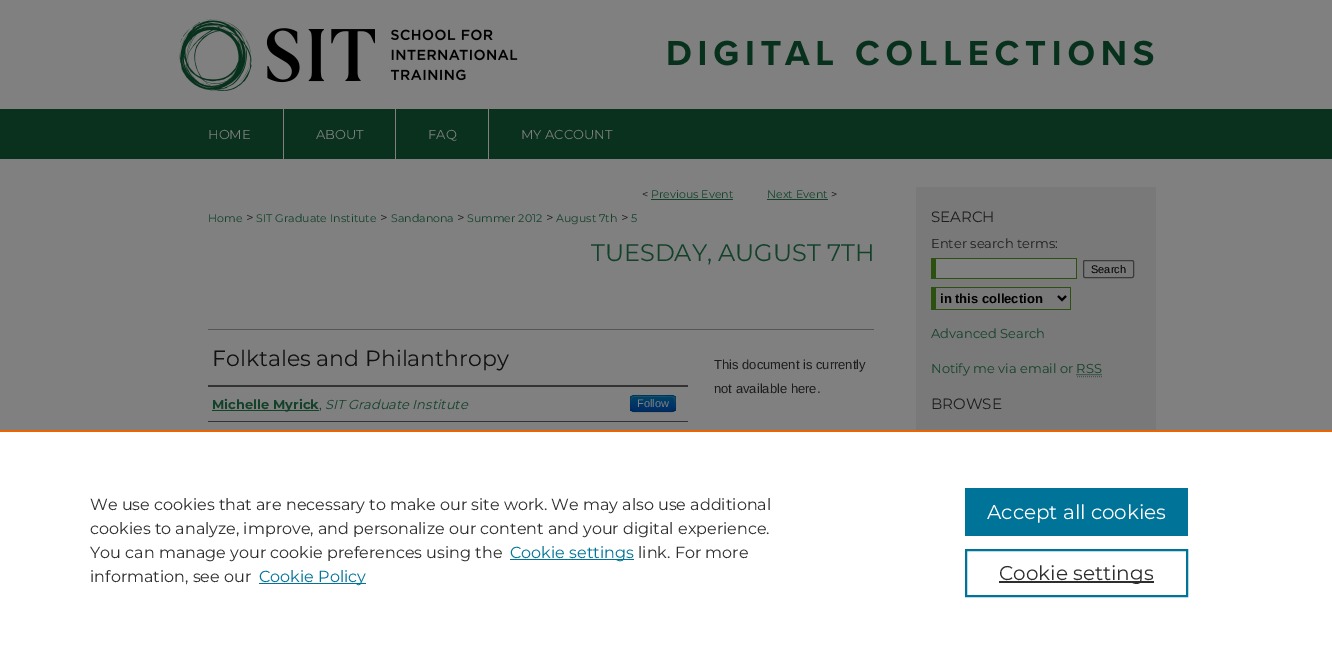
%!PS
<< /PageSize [1332 650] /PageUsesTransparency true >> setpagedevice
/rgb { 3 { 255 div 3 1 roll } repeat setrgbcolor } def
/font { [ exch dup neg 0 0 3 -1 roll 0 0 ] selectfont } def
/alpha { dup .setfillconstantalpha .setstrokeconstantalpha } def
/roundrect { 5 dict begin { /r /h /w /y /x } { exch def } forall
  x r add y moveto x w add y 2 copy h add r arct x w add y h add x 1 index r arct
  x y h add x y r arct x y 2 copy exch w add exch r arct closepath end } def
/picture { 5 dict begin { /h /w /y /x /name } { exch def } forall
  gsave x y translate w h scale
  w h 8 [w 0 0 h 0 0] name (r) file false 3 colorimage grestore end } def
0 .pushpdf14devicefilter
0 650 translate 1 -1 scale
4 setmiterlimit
128 128 128 rgb
0 0 1332 650 rectfill
9 49 29 rgb
0 109 1332 50 rectfill
(img/1.rgb) 177 19 977 72 picture
[
  [283 109 1 50 128 128 128]
  [395 109 1 50 128 128 128]
  [488 109 1 50 128 128 128]
  [651 199 82 1 19 65 42]
  [767 199 61 1 19 65 42]
  [208 329 666 1 85 85 85]
  [208 385 480 2 51 51 51]
  [208 421 480 1 51 51 51]
  [212 410 107 1 19 65 42]
] { aload pop rgb rectfill } forall
0 58 102 rgb
630 395 46 17 4 roundrect fill
gsave
630 395 46 17 4 roundrect clip newpath
gsave 630 396 moveto 676 396 lineto 676 411 lineto 630 411 lineto closepath clip newpath
<< /ShadingType 2 /ColorSpace /DeviceRGB /Coords [653 396 653 411] /Extend [true true] /Function << /FunctionType 2 /Domain [0 1] /C0 [0 0.267 0.4] /C1 [0 0.169 0.4] /N 1 >> >> shfill grestore
grestore
0.2 alpha
128 128 128 rgb
634 397 moveto 659 397 lineto 673 397 675 393 675 408 curveto 675 397 678 396 666 396 curveto 640 396 lineto 633 396 631 395 631 402 curveto 631 409 lineto 631 406 630 397 634 397 curveto closepath fill
0.25 alpha
0 0 0 rgb
674.5 410.5 moveto 674 411 673 411.5 672 411.5 curveto 634 411.5 lineto 633 411.5 632 411 631.5 410.5 curveto stroke
0.1 alpha
631.5 410.5 moveto 630 408.5 630.5 405.5 630.5 403.5 curveto 630.5 394.5 631 395.5 640.5 395.5 curveto 665.5 395.5 lineto 675 395.5 675.5 394.5 675.5 403.5 curveto 675.5 405.5 676 408.5 674.5 410.5 curveto stroke
1 alpha
[
  [916 187 240 243 121 121 121]
  [936 259 140 19 128 128 128]
  [931 258 146 1 44 80 15]
  [1076 258 1 21 44 80 15]
  [931 278 146 1 44 80 15]
  [931 258 5 21 44 80 15]
] { aload pop rgb rectfill } forall
59 59 59 rgb
1083.5 260.5 50 17 1.5 roundrect stroke
[
  [931 287 140 1 44 80 15]
  [1070 287 1 23 44 80 15]
  [931 309 140 1 44 80 15]
  [931 287 5 23 44 80 15]
] { aload pop rgb rectfill } forall
0 0 0 rgb
2 setlinewidth
1058 296 moveto 1062 300 lineto 1066 296 lineto stroke
77 77 77 rgb
1 setlinewidth
[1 1] 0 setdash
1077 376.5 moveto 1102 376.5 lineto stroke
[
  [0 432 1332 218 255 255 255]
  [0 430 1332 2 235 101 0]
  [510 559 124 1 0 115 152]
  [259 583 107 1 0 115 152]
  [965 488 223 48 0 115 152]
] { aload pop rgb rectfill } forall
2 setlinewidth
[] 0 setdash
966 550 221 46 rectstroke
46 46 46 rgb
999 581 155 2 rectfill
/Montserrat-Regular 13 font
128 128 128 rgb
[
  [(HOME) 208 139]
  [(ABOUT) 316 139]
  [(FAQ) 428 139]
  [(MY ACCOUNT) 521 139]
] { aload pop moveto show } forall
/Montserrat-Regular 11 font
17 17 17 rgb
642 198 moveto (<) show
19 65 42 rgb
651 198 moveto (Previous Event) show
767 198 moveto (Next Event) show
17 17 17 rgb
831 198 moveto (>) show
19 65 42 rgb
208 222 moveto (Home) show
/Montserrat-Regular 13 font
28 28 28 rgb
246 222 moveto (>) show
/Montserrat-Regular 11 font
19 65 42 rgb
256 222 moveto (SIT Graduate Institute) show
/Montserrat-Regular 13 font
28 28 28 rgb
380 222 moveto (>) show
/Montserrat-Regular 11 font
19 65 42 rgb
391 222 moveto (Sandanona) show
/Montserrat-Regular 13 font
28 28 28 rgb
457 222 moveto (>) show
/Montserrat-Regular 11 font
19 65 42 rgb
467 222 moveto (Summer 2012) show
/Montserrat-Regular 13 font
28 28 28 rgb
546 222 moveto (>) show
/Montserrat-Regular 11 font
19 65 42 rgb
556 222 moveto (August 7th) show
/Montserrat-Regular 13 font
28 28 28 rgb
621 222 moveto (>) show
/Montserrat-Regular 11 font
19 65 42 rgb
631 222 moveto (5) show
/Montserrat-Regular 24 font
591 261 moveto (TUESDAY, AUGUST 7TH) show
/Montserrat-Regular 22 font
17 17 17 rgb
212 366 moveto (Folktales and Philanthropy) show
/Montserrat-Bold 13 font
19 65 42 rgb
212 409 moveto (Michelle Myrick) show
/Montserrat-Regular 13 font
319 409 moveto (,) show
/Montserrat-Italic 13 font
325 409 moveto (SIT Graduate Institute) show
/LiberationSans-Regular 11 font
128 128 128 rgb
637 407 moveto (Follow) show
/LiberationSans-Regular 13 font
28 28 28 rgb
714 369 moveto (This document is currently) show
714 393 moveto (not available here.) show
/Montserrat-Regular 15 font
931 222 moveto (SEARCH) show
/Montserrat-Regular 13 font
931 248 moveto (Enter search terms:) show
/LiberationSans-Regular 11 font
0 0 0 rgb
1091 273 moveto (Search) show
/LiberationSans-Bold 13 font
940 303 moveto (in this collection) show
/Montserrat-Regular 13 font
19 65 42 rgb
931 338 moveto (Advanced Search) show
931 373 moveto (Notify me via email or RSS) show
18 63 41 rgb
1 setlinewidth
[1 1] 0 setdash
1076.5 374.5 moveto 1102 374.5 lineto stroke
/Montserrat-Regular 15 font
28 28 28 rgb
931 409 moveto (BROWSE) show
/Montserrat-Regular 16 font
46 46 46 rgb
[
  [(We use cookies that are necessary to make our site work. We may also use additional) 90 510]
  [(cookies to analyze, improve, and personalize our content and your digital experience.) 90 534]
  [(You can manage your cookie preferences using the) 90 558]
] { aload pop moveto show } forall
0 115 152 rgb
510 558 moveto (Cookie settings) show
46 46 46 rgb
638 558 moveto (link. For more) show
90 582 moveto (information, see our) show
0 115 152 rgb
259 582 moveto (Cookie Policy) show
/Montserrat-Regular 20 font
255 255 255 rgb
987 519 moveto (Accept all cookies) show
46 46 46 rgb
999 580 moveto (Cookie settings) show
.poppdf14devicefilter showpage
